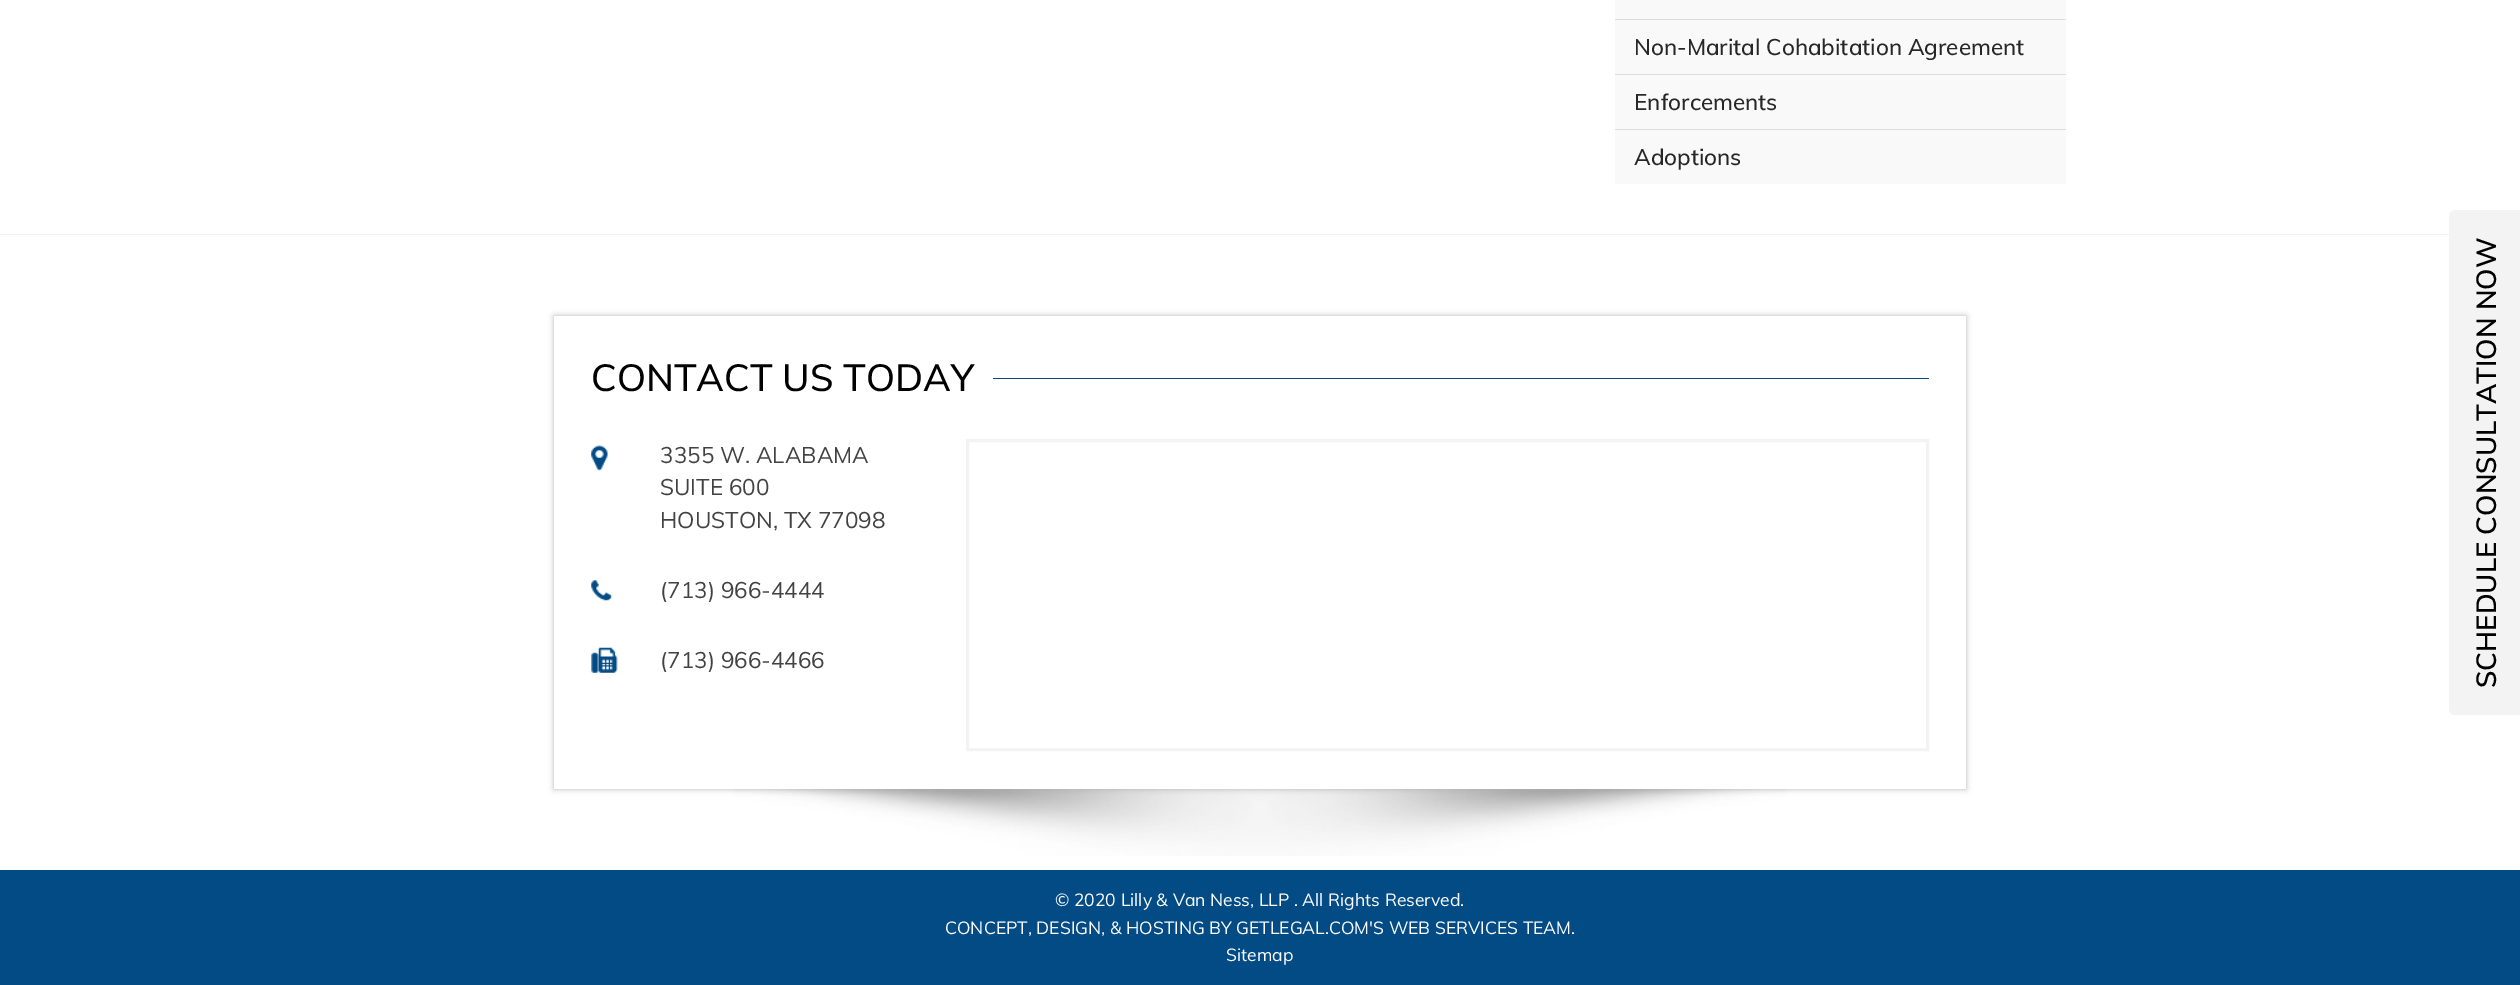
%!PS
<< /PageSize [2520 985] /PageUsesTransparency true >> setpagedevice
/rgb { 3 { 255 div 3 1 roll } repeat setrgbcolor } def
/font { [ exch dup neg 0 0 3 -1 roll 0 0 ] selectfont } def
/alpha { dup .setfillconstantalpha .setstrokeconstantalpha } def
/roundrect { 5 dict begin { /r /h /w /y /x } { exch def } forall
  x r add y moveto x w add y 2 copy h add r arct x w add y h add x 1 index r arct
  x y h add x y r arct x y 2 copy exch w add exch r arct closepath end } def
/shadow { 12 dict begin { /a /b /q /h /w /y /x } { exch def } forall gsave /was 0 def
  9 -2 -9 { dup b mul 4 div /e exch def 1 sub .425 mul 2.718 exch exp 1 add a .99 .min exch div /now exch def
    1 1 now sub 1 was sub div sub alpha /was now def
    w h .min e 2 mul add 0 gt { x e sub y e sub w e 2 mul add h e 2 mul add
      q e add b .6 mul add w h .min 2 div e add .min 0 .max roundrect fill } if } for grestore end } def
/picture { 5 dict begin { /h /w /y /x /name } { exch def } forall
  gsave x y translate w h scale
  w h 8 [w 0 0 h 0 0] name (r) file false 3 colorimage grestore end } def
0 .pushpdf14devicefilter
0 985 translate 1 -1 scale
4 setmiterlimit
255 255 255 rgb
0 0 2520 985 rectfill
[
  [0 234 2449 1 241 241 241]
  [1615 0 451 184 249 249 249]
  [1615 19 451 1 220 220 220]
  [1615 74 451 1 220 220 220]
  [1615 129 451 1 220 220 220]
] { aload pop rgb rectfill } forall
(img/4.rgb) 733 789 1054 67 picture
179 179 179 rgb
554 316 1412 473 0 3 1 shadow
255 255 255 rgb
554 316 1412 473 rectfill
2 74 132 rgb
993 378 936 1 rectfill
(img/1.rgb) 591 445 17 26 picture
(img/2.rgb) 591 580 21 21 picture
(img/3.rgb) 591 647 27 26 picture
243 243 243 rgb
3 setlinewidth
967.5 440.5 960 309 rectstroke
2449 709 moveto 2449 216 lineto 2449 213 2452 210 2455 210 curveto 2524 210 lineto 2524 715 lineto 2455 715 lineto 2452 715 2449 712 2449 709 curveto closepath fill
3 75 133 rgb
0 870 2520 115 rectfill
/Muli-Medium 22.5 font
39 39 39 rgb
[
  [(Non-Marital Cohabitation Agreement) 1634 55]
  [(Enforcements) 1634 110]
  [(Adoptions) 1634 165]
] { aload pop moveto show } forall
/Muli-Medium 37.5 font
0 0 0 rgb
591 391 moveto (CONTACT US TODAY) show
/Muli-Regular 22.5 font
66 65 67 rgb
[
  [(3355 W. ALABAMA) 660 463]
  [(SUITE 600) 660 495]
  [(HOUSTON, TX 77098) 660 528]
  [(\(713\) 966-4444) 660 598]
  [(\(713\) 966-4466) 660 668]
] { aload pop moveto show } forall
/Muli-SemiBold 27.5 font
0 0 0 rgb
gsave 2496 688 translate -90 rotate 0 0 moveto (SCHEDULE CONSULTATION NOW) show grestore
/Muli-Regular 17.5 font
255 255 255 rgb
[
  [(© 2020 Lilly & Van Ness, LLP . All Rights Reserved.) 1055 906]
  [(CONCEPT, DESIGN, & HOSTING BY GETLEGAL.COM'S WEB SERVICES TEAM.) 945 934]
  [(Sitemap) 1226 961]
] { aload pop moveto show } forall
.poppdf14devicefilter showpage
